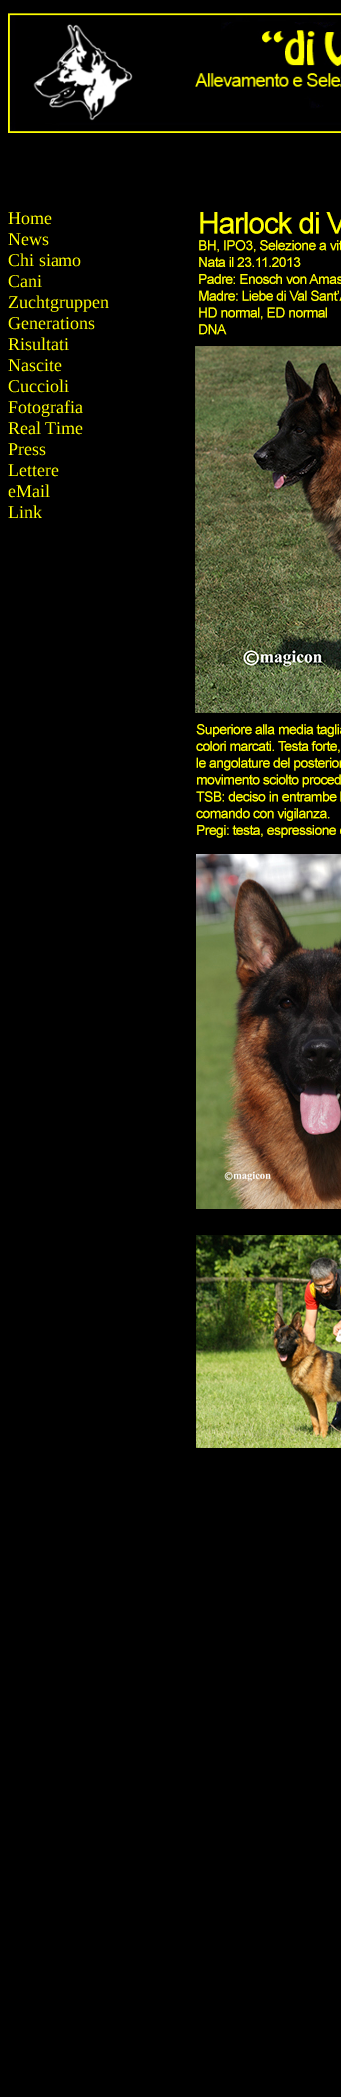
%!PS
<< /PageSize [341 2097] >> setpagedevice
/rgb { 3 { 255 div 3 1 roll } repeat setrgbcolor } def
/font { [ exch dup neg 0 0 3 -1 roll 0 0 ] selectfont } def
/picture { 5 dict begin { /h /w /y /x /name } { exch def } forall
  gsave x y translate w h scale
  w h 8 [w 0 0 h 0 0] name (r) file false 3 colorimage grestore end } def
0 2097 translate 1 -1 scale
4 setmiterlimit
0 0 0 rgb
0 0 341 2097 rectfill
(img/1.rgb) 8 13 333 120 picture
(img/2.rgb) 195 212 146 1236 picture
/LiberationSerif-Regular 18 font
255 255 0 rgb
[
  [(Home) 8 224]
  [(News) 8 245]
  [(Chi siamo) 8 266]
  [(Cani) 8 287]
  [(Zuchtgruppen) 8 308]
  [(Generations) 8 329]
  [(Risultati) 8 350]
  [(Nascite) 8 371]
  [(Cuccioli) 8 392]
  [(Fotografia) 8 413]
  [(Real Time) 8 434]
  [(Press) 8 455]
  [(Lettere) 8 476]
  [(eMail) 8 497]
  [(Link) 8 518]
] { aload pop moveto show } forall
showpage
